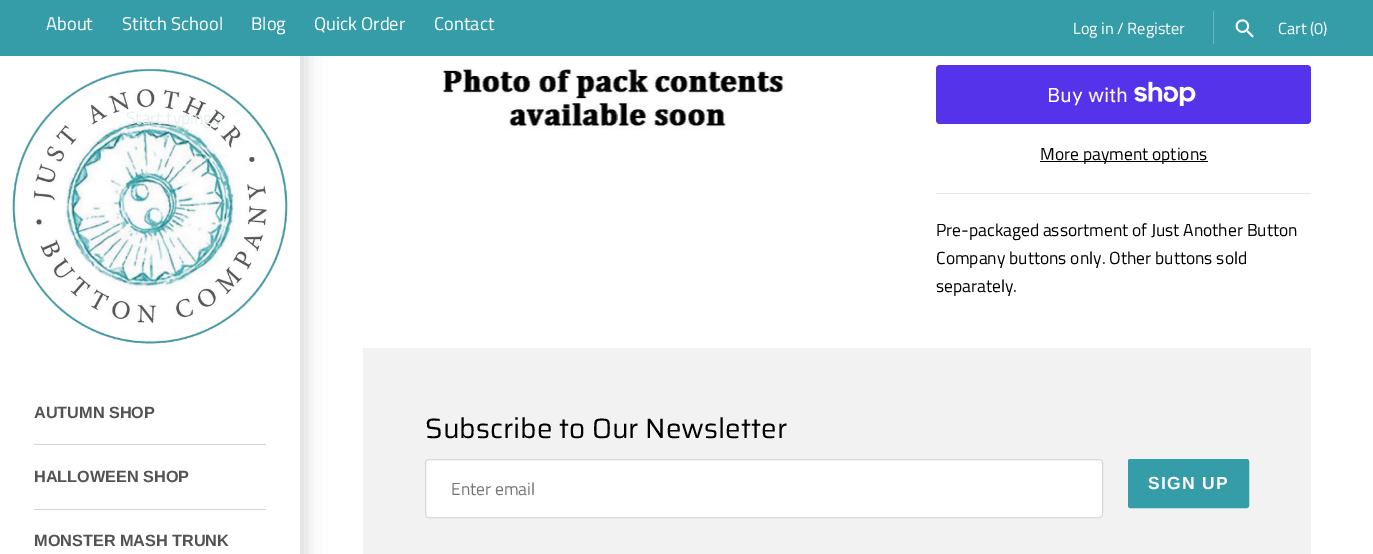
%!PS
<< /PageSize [1373 554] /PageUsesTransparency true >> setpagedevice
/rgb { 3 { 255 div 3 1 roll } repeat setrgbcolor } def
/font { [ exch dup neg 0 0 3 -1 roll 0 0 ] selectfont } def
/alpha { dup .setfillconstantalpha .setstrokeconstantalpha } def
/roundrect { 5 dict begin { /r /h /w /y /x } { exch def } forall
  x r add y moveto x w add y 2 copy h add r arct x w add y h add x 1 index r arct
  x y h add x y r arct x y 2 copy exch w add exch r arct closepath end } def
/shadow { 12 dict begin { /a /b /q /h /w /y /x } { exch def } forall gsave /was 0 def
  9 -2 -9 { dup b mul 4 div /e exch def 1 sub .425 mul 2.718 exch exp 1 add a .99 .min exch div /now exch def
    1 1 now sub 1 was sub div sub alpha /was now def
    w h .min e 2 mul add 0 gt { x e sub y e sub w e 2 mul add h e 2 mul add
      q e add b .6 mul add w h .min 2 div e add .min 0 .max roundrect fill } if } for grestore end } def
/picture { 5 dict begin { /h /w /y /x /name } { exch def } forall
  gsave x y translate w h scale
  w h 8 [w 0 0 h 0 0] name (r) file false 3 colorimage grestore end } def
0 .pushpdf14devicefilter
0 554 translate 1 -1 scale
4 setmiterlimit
255 255 255 rgb
0 0 1373 554 rectfill
0 0 0 rgb
-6 50 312 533 0 9.5 0.15 shadow
52 157 168 rgb
0 0 1373 56 rectfill
103 182 190 rgb
1213 11 1 33 rectfill
(img/1.rgb) 1235 19 19 19 picture
255 255 255 rgb
0 56 300 498 rectfill
(img/2.rgb) 12 68 276 276 picture
212 212 212 rgb
34 444 232 1 rectfill
34 509 232 1 rectfill
(img/3.rgb) 441 68 344 62 picture
84 51 235 rgb
936 65 375 59 4 roundrect fill
(img/4.rgb) 1134 81 62 25 picture
[
  [1040 161 168 1 0 0 0]
  [936 193 375 1 231 231 231]
  [363 348 948 206 242 242 242]
] { aload pop rgb rectfill } forall
255 255 255 rgb
425 459 678 59 4 roundrect fill
0.15 alpha
0 0 0 rgb
425.5 459.5 677 58 3.5 roundrect stroke
1 alpha
52 157 168 rgb
1128.5 459.5 120 48 2 roundrect gsave fill grestore
stroke
/TitilliumWeb-Regular 18.5 font
255 255 255 rgb
[
  [(About) 46 30]
  [(Stitch School) 122 30]
  [(Blog) 251 30]
  [(Quick Order) 314 30]
  [(Contact) 434 30]
] { aload pop moveto show } forall
/TitilliumWeb-Regular 16.25 font
1073 34 moveto (Log in / Register) show
1278 34 moveto (Cart \(0\)) show
/TitilliumWeb-Regular 17.5 font
233 238 239 rgb
126 124 moveto (Start typing...) show
/LiberationSans-Bold 16.25 font
83 83 83 rgb
[
  [(AUTUMN SHOP) 34 418]
  [(HALLOWEEN SHOP) 34 482]
  [(MONSTER MASH TRUNK) 34 546]
] { aload pop moveto show } forall
/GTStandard-Regular 20 font
255 255 255 rgb
1047 102 moveto (Buy with) show
/TitilliumWeb-Regular 17.5 font
0 0 0 rgb
[
  [(More payment options) 1040 160]
  [(Pre-packaged assortment of Just Another Button) 936 236]
  [(Company buttons only. Other buttons sold) 936 264]
  [(separately.) 936 292]
] { aload pop moveto show } forall
/Saira-Regular 28 font
425 438 moveto (Subscribe to Our Newsletter) show
/TitilliumWeb-Regular 17.5 font
117 117 117 rgb
451 495 moveto (Enter email) show
/LiberationSans-Bold 17.5 font
255 255 255 rgb
1148 489 moveto 1.25 0 (SIGN UP) ashow
.poppdf14devicefilter showpage
